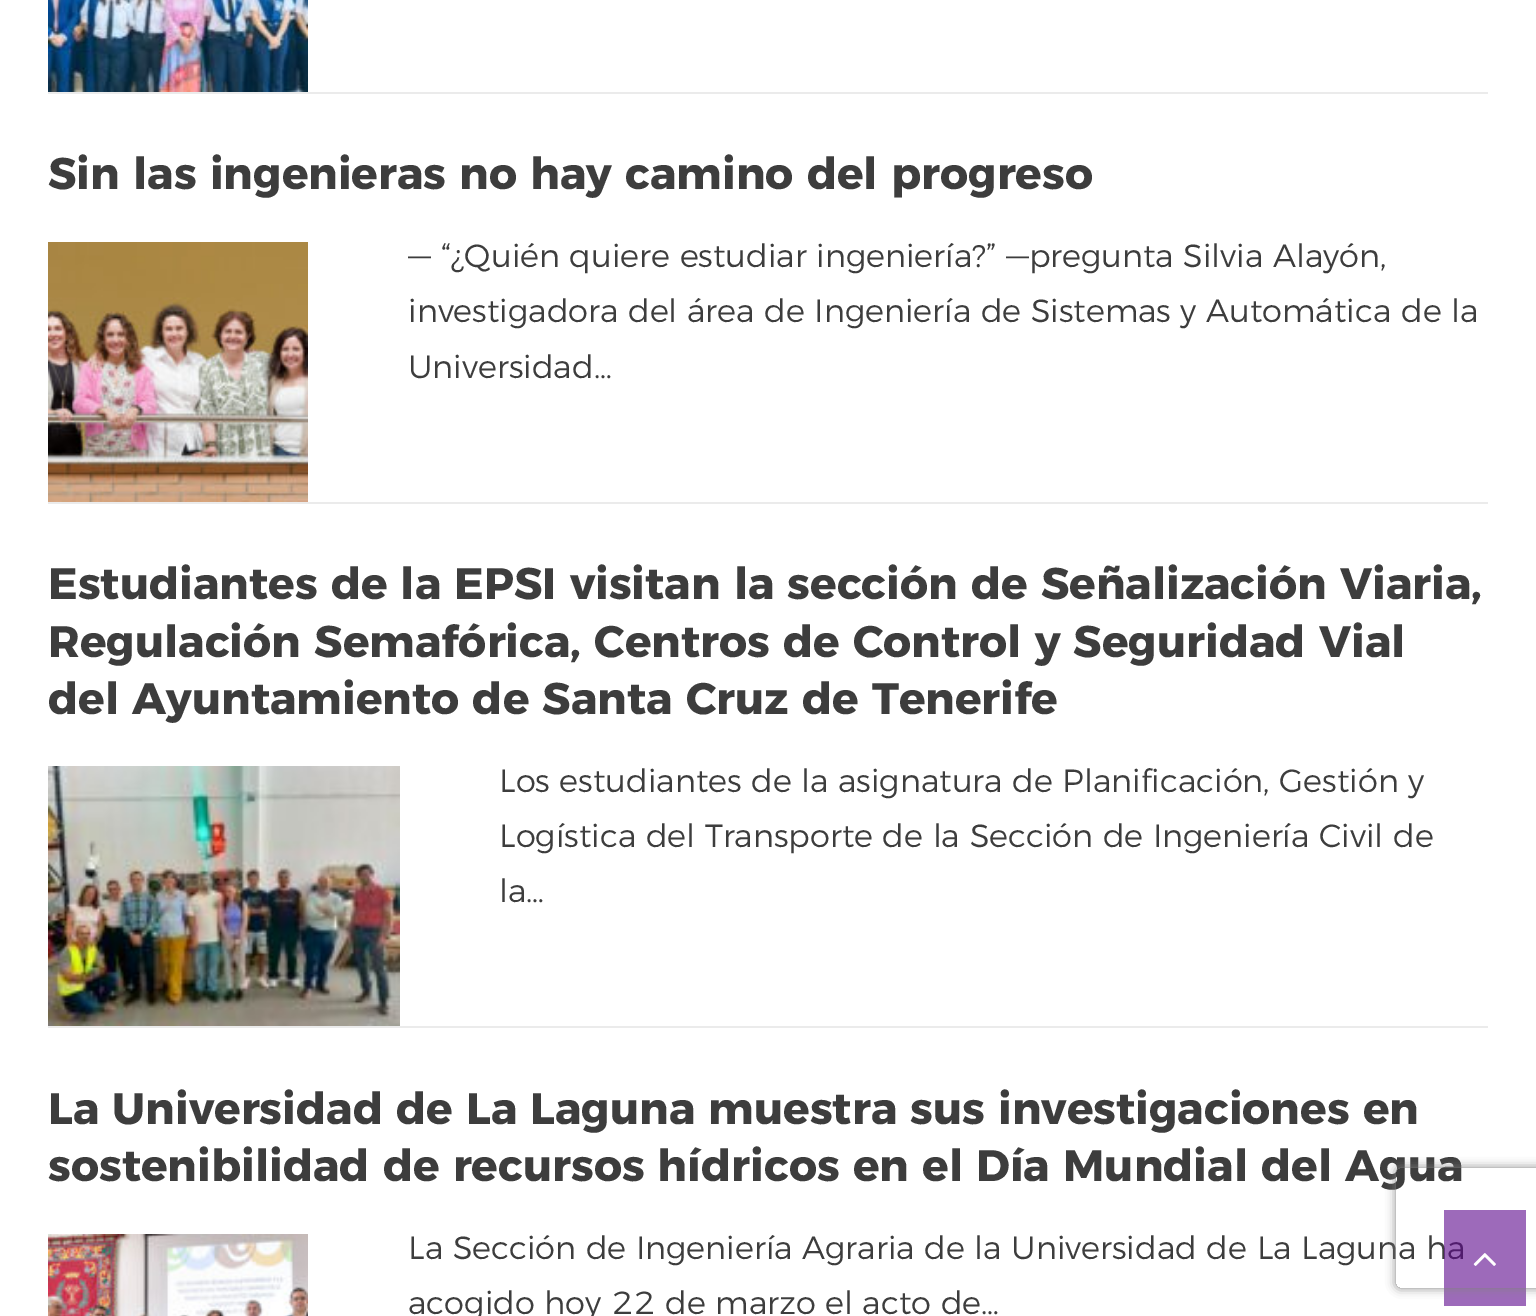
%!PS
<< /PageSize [1536 1316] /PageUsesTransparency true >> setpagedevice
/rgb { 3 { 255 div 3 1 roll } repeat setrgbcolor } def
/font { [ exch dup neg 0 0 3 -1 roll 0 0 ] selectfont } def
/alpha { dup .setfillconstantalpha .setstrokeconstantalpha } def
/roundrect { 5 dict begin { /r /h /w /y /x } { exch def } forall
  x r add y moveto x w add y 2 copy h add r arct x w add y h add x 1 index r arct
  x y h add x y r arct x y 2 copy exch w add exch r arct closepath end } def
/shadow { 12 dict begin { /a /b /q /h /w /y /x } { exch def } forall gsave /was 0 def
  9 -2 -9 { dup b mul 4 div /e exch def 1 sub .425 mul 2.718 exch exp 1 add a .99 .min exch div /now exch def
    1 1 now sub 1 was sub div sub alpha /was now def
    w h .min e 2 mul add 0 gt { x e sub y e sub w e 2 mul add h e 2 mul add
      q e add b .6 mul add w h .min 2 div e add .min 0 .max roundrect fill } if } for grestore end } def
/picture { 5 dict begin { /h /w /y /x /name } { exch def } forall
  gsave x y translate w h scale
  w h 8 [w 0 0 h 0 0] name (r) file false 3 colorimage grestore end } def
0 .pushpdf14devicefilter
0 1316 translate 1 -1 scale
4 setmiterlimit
255 255 255 rgb
0 0 1536 1316 rectfill
(img/1.rgb) 48 0 260 92 picture
235 235 235 rgb
48 92 1440 2 rectfill
(img/2.rgb) 48 242 260 260 picture
48 502 1440 2 rectfill
(img/3.rgb) 48 766 352 260 picture
48 1026 1440 2 rectfill
(img/4.rgb) 48 1234 260 82 picture
/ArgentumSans-Bold 44 font
61 61 61 rgb
48 189 moveto (Sin las ingenieras no hay camino del progreso) show
/ArgentumSans-Light 32 font
[
  [(— “¿Quién quiere estudiar ingeniería?” —pregunta Silvia Alayón,) 408 267]
  [(investigadora del área de Ingeniería de Sistemas y Automática de la) 408 322]
  [(Universidad…) 408 378]
] { aload pop moveto show } forall
/ArgentumSans-Bold 44 font
[
  [(Estudiantes de la EPSI visitan la sección de Señalización Viaria,) 48 599]
  [(Regulación Semafórica, Centros de Control y Seguridad Vial) 48 657]
  [(del Ayuntamiento de Santa Cruz de Tenerife) 48 714]
] { aload pop moveto show } forall
/ArgentumSans-Light 32 font
[
  [(Los estudiantes de la asignatura de Planificación, Gestión y) 499 792]
  [(Logística del Transporte de la Sección de Ingeniería Civil de) 499 847]
  [(la…) 499 902]
] { aload pop moveto show } forall
/ArgentumSans-Bold 44 font
48 1124 moveto (La Universidad de La Laguna muestra sus investigaciones en) show
48 1181 moveto (sostenibilidad de recursos hídricos en el Día Mundial del Agua) show
/ArgentumSans-Light 32 font
408 1259 moveto (La Sección de Ingeniería Agraria de la Universidad de La Laguna ha) show
408 1314 moveto (acogido hoy 22 de marzo el acto de…) show
0.6 alpha
92 6 140 rgb
1444 1210 82 96 rectfill
1 alpha
(img/5.rgb) 1473 1253 23 13 picture
gsave
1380 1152 moveto 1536 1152 lineto 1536 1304 lineto 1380 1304 lineto closepath 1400 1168 moveto 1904 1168 lineto 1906 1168 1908 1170 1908 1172 curveto 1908 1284 lineto 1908 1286 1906 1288 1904 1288 curveto 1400 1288 lineto 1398 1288 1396 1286 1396 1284 curveto 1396 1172 lineto 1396 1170 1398 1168 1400 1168 curveto closepath eoclip newpath
128 128 128 rgb
1396 1168 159 120 4 5 1 shadow
grestore
.poppdf14devicefilter showpage
